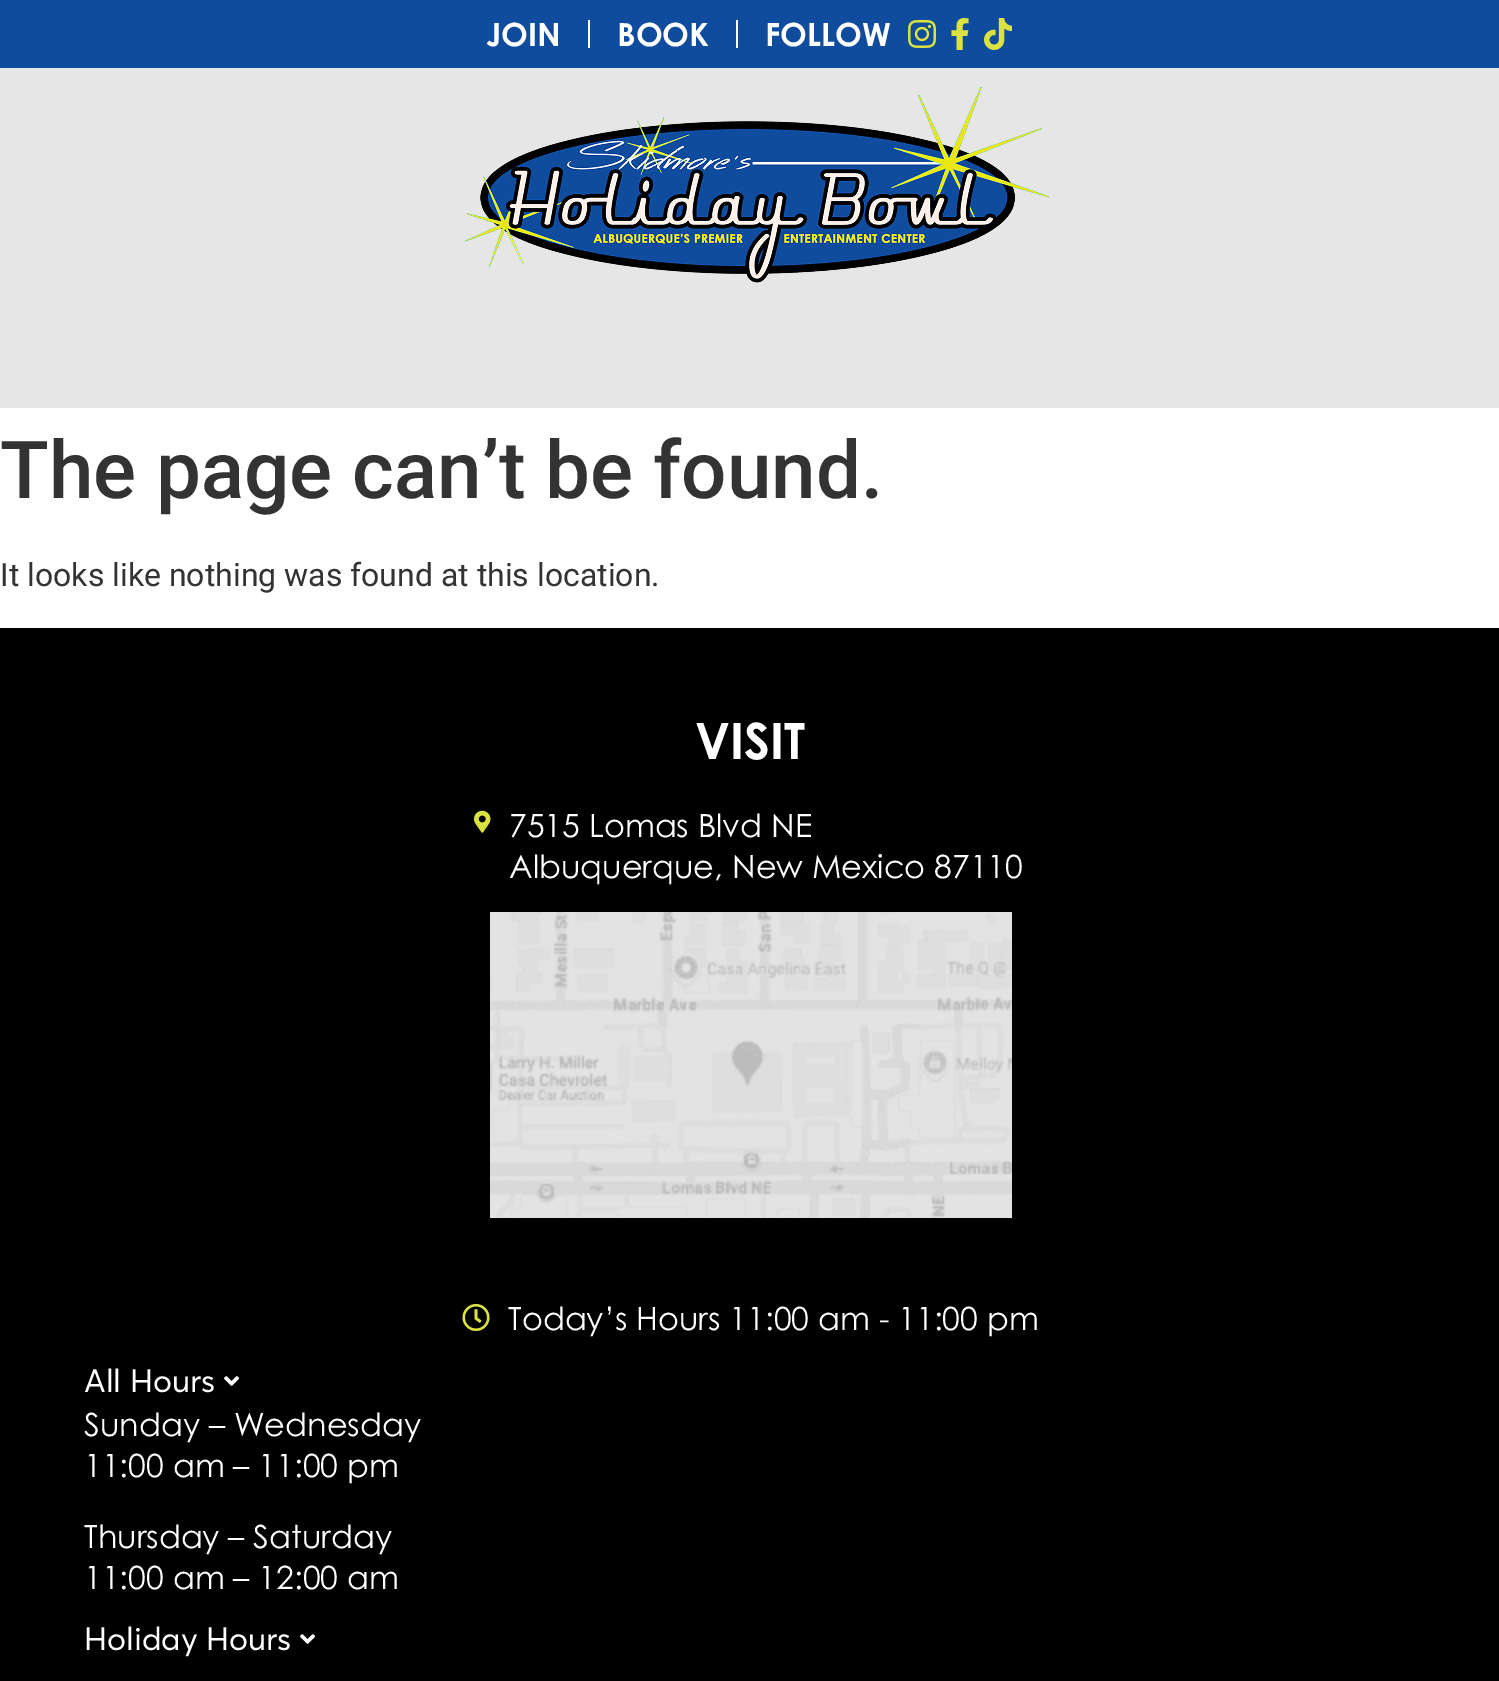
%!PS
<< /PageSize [1499 1681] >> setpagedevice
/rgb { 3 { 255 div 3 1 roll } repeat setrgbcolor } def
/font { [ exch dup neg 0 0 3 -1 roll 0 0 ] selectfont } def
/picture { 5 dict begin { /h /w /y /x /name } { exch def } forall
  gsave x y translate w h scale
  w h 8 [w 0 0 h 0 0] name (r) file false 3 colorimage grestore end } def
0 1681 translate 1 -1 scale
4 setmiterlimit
255 255 255 rgb
0 0 1499 1681 rectfill
[
  [0 0 1499 68 15 76 158]
  [588 20 2 28 255 255 255]
  [736 20 2 28 255 255 255]
] { aload pop rgb rectfill } forall
(img/1.rgb) 908 19 29 29 picture
(img/2.rgb) 951 18 18 32 picture
(img/3.rgb) 984 18 28 32 picture
230 230 230 rgb
0 68 1499 340 rectfill
(img/4.rgb) 465 87 584 196 picture
0 0 0 rgb
0 628 1499 1053 rectfill
(img/5.rgb) 474 810 17 23 picture
(img/6.rgb) 490 912 522 306 picture
(img/7.rgb) 462 1304 28 27 picture
(img/8.rgb) 224 1376 15 10 picture
(img/8.rgb) 300 1634 15 10 picture
/CenturyGothic-Bold 32 font
255 255 255 rgb
[
  [(JOIN) 486 46]
  [(BOOK) 617 46]
  [(FOLLOW) 765 46]
] { aload pop moveto show } forall
/Roboto-Medium 80 font
51 51 51 rgb
0 498 moveto (The page can’t be found.) show
/Roboto-Regular 32 font
0 586 moveto (It looks like nothing was found at this location.) show
/CenturyGothic-Bold 50 font
255 255 255 rgb
695 759 moveto (VISIT) show
/CenturyGothic-Regular 32 font
[
  [(7515 Lomas Blvd NE) 509 837]
  [(Albuquerque, New Mexico 87110) 509 878]
  [(Today’s Hours 11:00 am - 11:00 pm) 508 1330]
] { aload pop moveto show } forall
/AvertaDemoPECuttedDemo-Regular 32 font
84 1392 moveto (All Hours) show
/CenturyGothic-Regular 32 font
[
  [(Sunday – Wednesday) 84 1436]
  [(11:00 am – 11:00 pm) 84 1477]
  [(Thursday – Saturday) 84 1548]
  [(11:00 am – 12:00 am) 84 1589]
] { aload pop moveto show } forall
/AvertaDemoPECuttedDemo-Regular 32 font
84 1650 moveto (Holiday Hours) show
showpage
